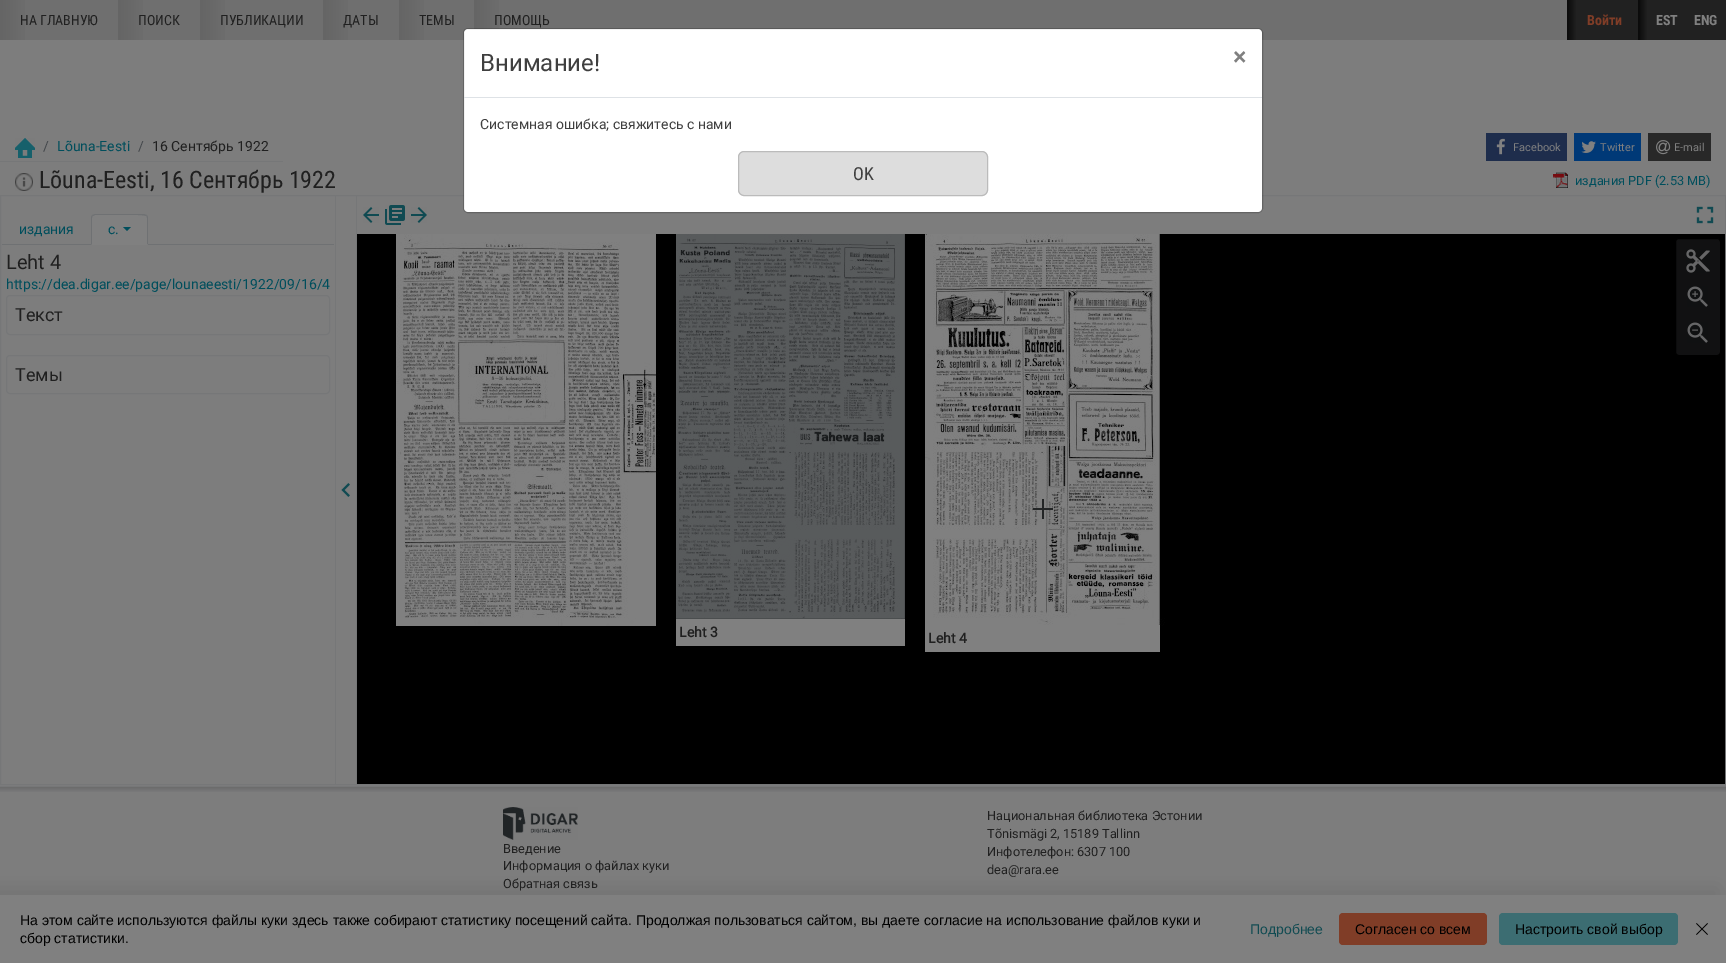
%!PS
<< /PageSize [1726 963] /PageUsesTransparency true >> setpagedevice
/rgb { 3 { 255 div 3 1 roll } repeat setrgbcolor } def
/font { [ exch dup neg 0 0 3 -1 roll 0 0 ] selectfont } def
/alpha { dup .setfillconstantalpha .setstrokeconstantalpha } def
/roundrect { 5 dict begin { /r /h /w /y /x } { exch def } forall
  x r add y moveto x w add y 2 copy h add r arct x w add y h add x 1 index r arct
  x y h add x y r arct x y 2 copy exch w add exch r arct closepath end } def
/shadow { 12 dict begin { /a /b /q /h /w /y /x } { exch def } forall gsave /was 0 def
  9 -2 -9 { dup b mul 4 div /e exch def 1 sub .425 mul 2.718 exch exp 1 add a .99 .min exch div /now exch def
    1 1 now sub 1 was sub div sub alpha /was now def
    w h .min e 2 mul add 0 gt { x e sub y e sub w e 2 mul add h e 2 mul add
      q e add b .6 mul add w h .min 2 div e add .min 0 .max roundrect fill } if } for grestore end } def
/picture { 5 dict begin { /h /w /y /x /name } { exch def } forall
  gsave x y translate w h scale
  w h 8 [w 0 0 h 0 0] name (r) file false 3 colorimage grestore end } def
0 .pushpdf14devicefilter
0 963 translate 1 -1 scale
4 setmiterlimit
125 125 125 rgb
0 0 1726 963 rectfill
111 111 111 rgb
0 0 1567 40 rectfill
(img/1.rgb) 0 0 25 40 picture
(img/1.rgb) 118 0 25 40 picture
(img/1.rgb) 200 0 25 40 picture
(img/1.rgb) 323 0 25 40 picture
(img/1.rgb) 399 0 25 40 picture
(img/2.rgb) 474 0 25 29 picture
33 33 33 rgb
1567 0 159 40 rectfill
(img/3.rgb) 1638 0 9 40 picture
(img/3.rgb) 1567 0 9 40 picture
118 119 120 rgb
0 161 283 1 rectfill
(img/4.rgb) 15 138 20 20 picture
30 45 76 rgb
1486 133 81 28 rectfill
(img/5.rgb) 1496 138 9 17 picture
0 57 119 rgb
1574 133 67 28 rectfill
(img/6.rgb) 1581 141 15 12 picture
40 40 40 rgb
1648 133 63 28 rectfill
(img/7.rgb) 1656 140 15 15 picture
118 119 120 rgb
0.5 195.5 1725 589 rectstroke
255 255 255 rgb
464 29 798 183 4 roundrect fill
0.2 alpha
0 0 0 rgb
463.5 28.5 799 184 4.5 roundrect stroke
1 alpha
222 226 230 rgb
464 97 798 1 rectfill
221 221 221 rgb
738.5 151.5 249 44 5.5 roundrect gsave fill grestore
187 187 187 rgb
stroke
(img/8.rgb) 15 173 18 18 picture
(img/9.rgb) 1553 172 15 16 picture
111 113 115 rgb
2 244 332 1 rectfill
128 128 128 rgb
95 214 moveto 144 214 lineto 146 214 148 216 148 218 curveto 148 245 lineto 91 245 lineto 91 218 lineto 91 216 93 214 95 214 curveto closepath fill
111 113 115 rgb
95 214 moveto 92 215 lineto 93 216 lineto 95 215 lineto 101 215 144 214 146 216 curveto 147 215 lineto 144 214 lineto closepath fill
148 245 moveto 148 218 lineto 148 217 147.5 216 147 215 curveto 146 216 lineto 147 216 147 217 147 218 curveto 147 244 lineto closepath fill
128 128 128 rgb
148 245 moveto 147 244 lineto 92 244 lineto 91 245 lineto closepath fill
111 113 115 rgb
91 245 moveto 92 244 lineto 92 218 lineto 92 217 92 216 93 216 curveto 92 215 lineto 91.5 216 91 217 91 218 curveto closepath fill
0 78 92 rgb
123 227 moveto 131 227 lineto 127 231 lineto closepath fill
118 119 120 rgb
6.5 295.5 323 39 3.5 roundrect stroke
6.5 355.5 323 38 3.5 roundrect stroke
356 196 1 588 rectfill
335 196 1 588 rectfill
(img/10.rgb) 341 483 9 14 picture
(img/11.rgb) 363 207 16 16 picture
(img/12.rgb) 385 205 20 20 picture
(img/13.rgb) 411 207 16 16 picture
(img/14.rgb) 1696 206 18 18 picture
0 0 0 rgb
357 234 1368 550 rectfill
(img/15.rgb) 396 234 256 256 picture
(img/16.rgb) 652 234 8 256 picture
(img/17.rgb) 676 234 229 256 picture
(img/18.rgb) 925 234 235 256 picture
(img/19.rgb) 396 490 256 136 picture
128 128 128 rgb
652 490 4 136 rectfill
(img/20.rgb) 676 490 231 135 picture
(img/21.rgb) 925 490 240 136 picture
17 17 18 rgb
1675.5 238.5 45 117 3.5 roundrect gsave fill grestore
0 0 0 rgb
stroke
(img/22.rgb) 1686 249 24 24 picture
(img/23.rgb) 1687 286 21 21 picture
(img/24.rgb) 1687 322 21 21 picture
[
  [1033 508 20 2 35 37 38]
  [1042 499 2 20 35 37 38]
  [676 619 229 27 128 128 128]
  [925 625 235 27 128 128 128]
] { aload pop rgb rectfill } forall
(img/25.rgb) 0 787 1726 5 picture
118 119 120 rgb
0 786 1726 1 rectfill
(img/26.rgb) 503 807 75 33 picture
0 0 0 rgb
-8 888 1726 68 0 10 0.1 shadow
128 128 128 rgb
0 895 1726 68 rectfill
128 61 39 rgb
1339 913 148 32 4 roundrect fill
60 109 114 rgb
1499 913 179 32 4 roundrect fill
(img/27.rgb) 1696 923 12 12 picture
/RobotoCondensed-Regular 14 font
32 32 32 rgb
[
  [(НА ГЛАВНУЮ) 20 25]
  [(ПОИСК) 138 25]
  [(ПУБЛИКАЦИИ) 220 25]
  [(ДАТЫ) 343 25]
  [(ТЕМЫ) 419 25]
  [(ПОМОЩЬ) 494 25]
] { aload pop moveto show } forall
/RobotoCondensed-Bold 14 font
128 61 39 rgb
1587 25 moveto (Войти) show
128 128 128 rgb
1656 25 moveto (EST) show
1694 25 moveto (ENG) show
/Roboto-Regular 14 font
67 71 75 rgb
43 151 moveto (/) show
0 78 92 rgb
57 151 moveto (Lõuna-Eesti) show
67 71 75 rgb
138 151 moveto (/) show
32 32 32 rgb
152 151 moveto (16 Сентябрь 1922) show
/Roboto-Regular 11 font
128 128 128 rgb
[
  [(Facebook) 1513 151]
  [(Twitter) 1600 151]
  [(E-mail) 1674 151]
] { aload pop moveto show } forall
/Roboto-Regular 24 font
63 63 63 rgb
480 71 moveto (Внимание!) show
/Roboto-Bold 24 font
128 128 128 rgb
1233 65 moveto (×) show
/Roboto-Regular 14 font
63 63 63 rgb
480 129 moveto (Системная ошибка; свяжитесь с нами) show
/RobotoCondensed-Regular 18 font
853 180 moveto (OK) show
/RobotoCondensed-Regular 24 font
32 32 32 rgb
39 188 moveto (Lõuna-Eesti, 16 Сентябрь 1922) show
/Roboto-Regular 12.75 font
0 78 92 rgb
1575 185 moveto (издания PDF \(2.53 MB\)) show
/Roboto-Regular 14 font
19 234 moveto (издания) show
108 234 moveto (с.) show
/Roboto-Regular 20 font
32 32 32 rgb
6 269 moveto (Leht 4) show
/Roboto-Regular 14 font
0 78 92 rgb
6 289 moveto (https://dea.digar.ee/page/lounaeesti/1922/09/16/4) show
/Roboto-Regular 18 font
32 32 32 rgb
15 321 moveto (Текст) show
15 381 moveto (Темы) show
/Roboto-Bold 14 font
679 637 moveto (Leht 3) show
928 643 moveto (Leht 4) show
/Roboto-Regular 12.75 font
[
  [(Национальная библиотека Эстонии) 987 820]
  [(Tõnismägi 2, 15189 Tallinn) 987 838]
  [(Инфотелефон: 6307 100) 987 856]
  [(dea@rara.ee) 987 874]
  [(Введение) 503 853]
  [(Информация о файлах куки) 503 870]
  [(Обратная связь) 503 888]
] { aload pop moveto show } forall
/LiberationSans-Regular 14 font
0 0 0 rgb
20 925 moveto (На этом сайте используются файлы куки здесь также собирают статистику посещений сайта. Продолжая пользоваться сайтом, вы даете согласие на использование файлов куки и) show
20 943 moveto (сбор статистики.) show
17 75 82 rgb
1250 934 moveto (Подробнее) show
0 0 0 rgb
1355 934 moveto (Согласен со всем) show
1515 934 moveto (Настроить свой выбор) show
.poppdf14devicefilter showpage
